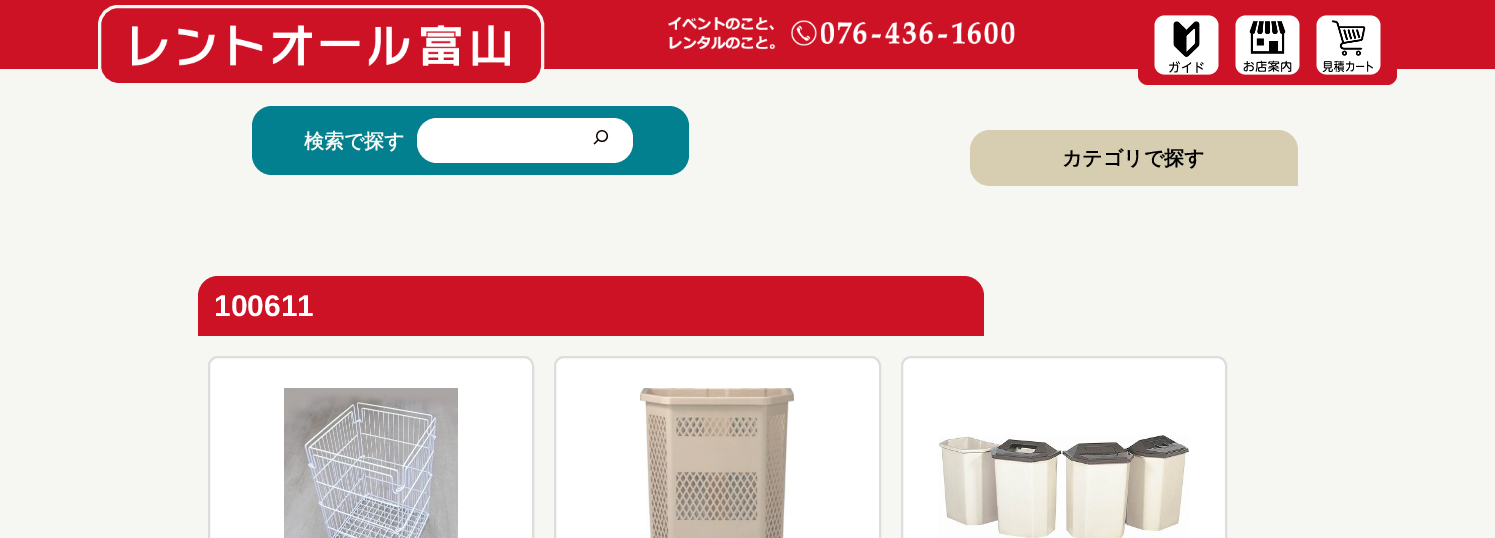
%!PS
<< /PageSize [1495 538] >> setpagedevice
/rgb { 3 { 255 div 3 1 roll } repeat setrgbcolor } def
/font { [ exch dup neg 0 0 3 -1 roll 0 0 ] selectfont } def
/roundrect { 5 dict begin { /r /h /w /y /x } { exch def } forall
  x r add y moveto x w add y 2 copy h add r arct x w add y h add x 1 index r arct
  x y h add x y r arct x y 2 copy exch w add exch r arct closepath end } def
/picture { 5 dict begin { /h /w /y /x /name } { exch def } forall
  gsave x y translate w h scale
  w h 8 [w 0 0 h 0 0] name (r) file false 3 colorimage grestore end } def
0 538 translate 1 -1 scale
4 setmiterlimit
246 246 242 rgb
0 0 1495 538 rectfill
206 18 37 rgb
0 0 1495 69 rectfill
99.5 6.5 443 78 18.5 roundrect gsave fill grestore
246 246 242 rgb
3 setlinewidth
stroke
(img/1.rgb) 132 25 378 41 picture
(img/2.rgb) 668 17 108 33 picture
(img/3.rgb) 791 20 224 26 picture
206 18 37 rgb
1138 5 259 80 10 roundrect fill
(img/4.rgb) 1154 15 65 60 picture
(img/5.rgb) 1235 15 65 60 picture
(img/6.rgb) 1316 15 65 60 picture
2 128 144 rgb
252 106 437 69 20 roundrect fill
255 255 255 rgb
417 118 192 45 20 roundrect fill
569 118 64 45 20 roundrect fill
(img/7.rgb) 593 130 16 15 picture
215 206 178 rgb
990 130 moveto 1278 130 lineto 1289 130 1298 139 1298 150 curveto 1298 186 lineto 990 186 lineto 979 186 970 177 970 166 curveto 970 150 lineto 970 139 979 130 990 130 curveto closepath fill
206 18 37 rgb
218 276 moveto 964 276 lineto 975 276 984 285 984 296 curveto 984 336 lineto 198 336 lineto 198 296 lineto 198 285 207 276 218 276 curveto closepath fill
255 255 255 rgb
209 357 324 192 9 roundrect gsave fill grestore
221 221 221 rgb
2 setlinewidth
stroke
(img/8.rgb) 284 388 174 150 picture
255 255 255 rgb
555 357 325 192 9 roundrect gsave fill grestore
221 221 221 rgb
stroke
(img/9.rgb) 640 388 154 150 picture
255 255 255 rgb
902 357 324 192 9 roundrect gsave fill grestore
221 221 221 rgb
stroke
(img/10.rgb) 939 435 250 103 picture
/WenQuanYiZenHei-Bold 20 font
246 246 242 rgb
304 148 moveto (検索で探す) show
0 0 0 rgb
1062 165 moveto (カテゴリで探す) show
/LiberationSans-Bold 30 font
255 255 255 rgb
214 316 moveto (100611) show
showpage
